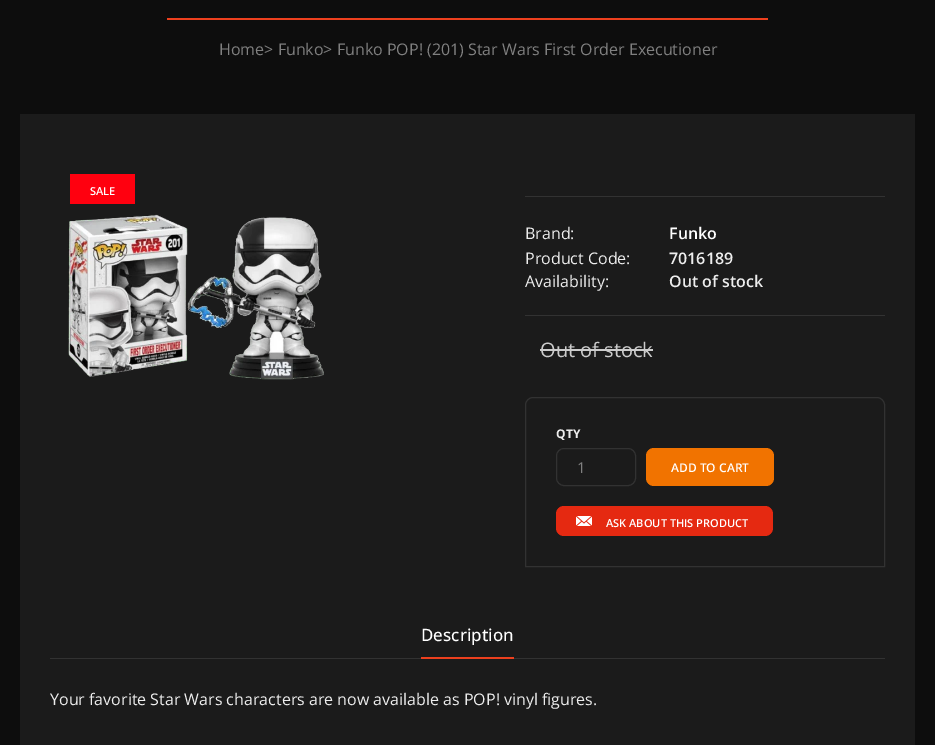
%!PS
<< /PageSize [935 745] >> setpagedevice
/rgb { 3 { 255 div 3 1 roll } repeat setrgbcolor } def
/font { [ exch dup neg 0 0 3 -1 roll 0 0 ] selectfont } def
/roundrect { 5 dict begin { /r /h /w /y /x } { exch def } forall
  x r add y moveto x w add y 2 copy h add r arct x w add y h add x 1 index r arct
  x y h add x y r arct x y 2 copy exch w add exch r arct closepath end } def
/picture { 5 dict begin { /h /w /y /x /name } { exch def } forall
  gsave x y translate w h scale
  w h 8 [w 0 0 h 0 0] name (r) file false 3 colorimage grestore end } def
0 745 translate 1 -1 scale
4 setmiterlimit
13 13 13 rgb
0 0 935 745 rectfill
[
  [167 18 601 2 237 64 30]
  [20 114 895 631 27 27 27]
  [70 174 65 30 255 0 15]
] { aload pop rgb rectfill } forall
(img/1.rgb) 68 214 256 166 picture
[
  [525 196 360 1 50 50 50]
  [525 315 360 1 50 50 50]
  [540 349 113 2 204 204 204]
] { aload pop rgb rectfill } forall
50 50 50 rgb
533 397.5 moveto 877 397.5 lineto 881 397.5 884.5 401 884.5 405 curveto 884.5 566.5 lineto 525.5 566.5 lineto 525.5 405 lineto 525.5 401 529 397.5 533 397.5 curveto closepath stroke
556.5 448.5 79 37 7.5 roundrect stroke
241 115 0 rgb
646 448 128 38 8 roundrect fill
229 41 17 rgb
556 506 217 30 8 roundrect fill
(img/2.rgb) 576 516 16 10 picture
50 50 50 rgb
50 658 835 1 rectfill
237 64 30 rgb
421 657 93 2 rectfill
/OpenSans-Regular 16 font
128 128 128 rgb
219 55 moveto (Home> Funko> Funko POP! \(201\) Star Wars First Order Executioner) show
/OpenSans-SemiBold 11 font
255 255 255 rgb
90 195 moveto (SALE) show
/OpenSans-Regular 16 font
237 237 237 rgb
525 239 moveto (Brand:) show
/OpenSans-SemiBold 16 font
255 255 255 rgb
669 239 moveto (Funko) show
/OpenSans-Regular 16 font
237 237 237 rgb
525 264 moveto (Product Code:) show
/OpenSans-SemiBold 16 font
669 264 moveto (7016189) show
/OpenSans-Regular 16 font
525 287 moveto (Availability:) show
/OpenSans-SemiBold 16 font
669 287 moveto (Out of stock) show
/OpenSans-Regular 20 font
204 204 204 rgb
540 357 moveto (Out of stock) show
/OpenSans-Bold 12 font
237 237 237 rgb
556 438 moveto (QTY) show
/OpenSans-Regular 15 font
128 128 128 rgb
577 473 moveto (1) show
/OpenSans-SemiBold 12 font
255 255 255 rgb
671 472 moveto (ADD TO CART) show
/OpenSans-SemiBold 11 font
606 527 moveto (ASK ABOUT THIS PRODUCT) show
/OpenSans-Medium 17 font
421 641 moveto (Description) show
/OpenSans-Regular 16 font
237 237 237 rgb
50 705 moveto (Your favorite Star Wars characters are now available as POP! vinyl figures.) show
showpage
